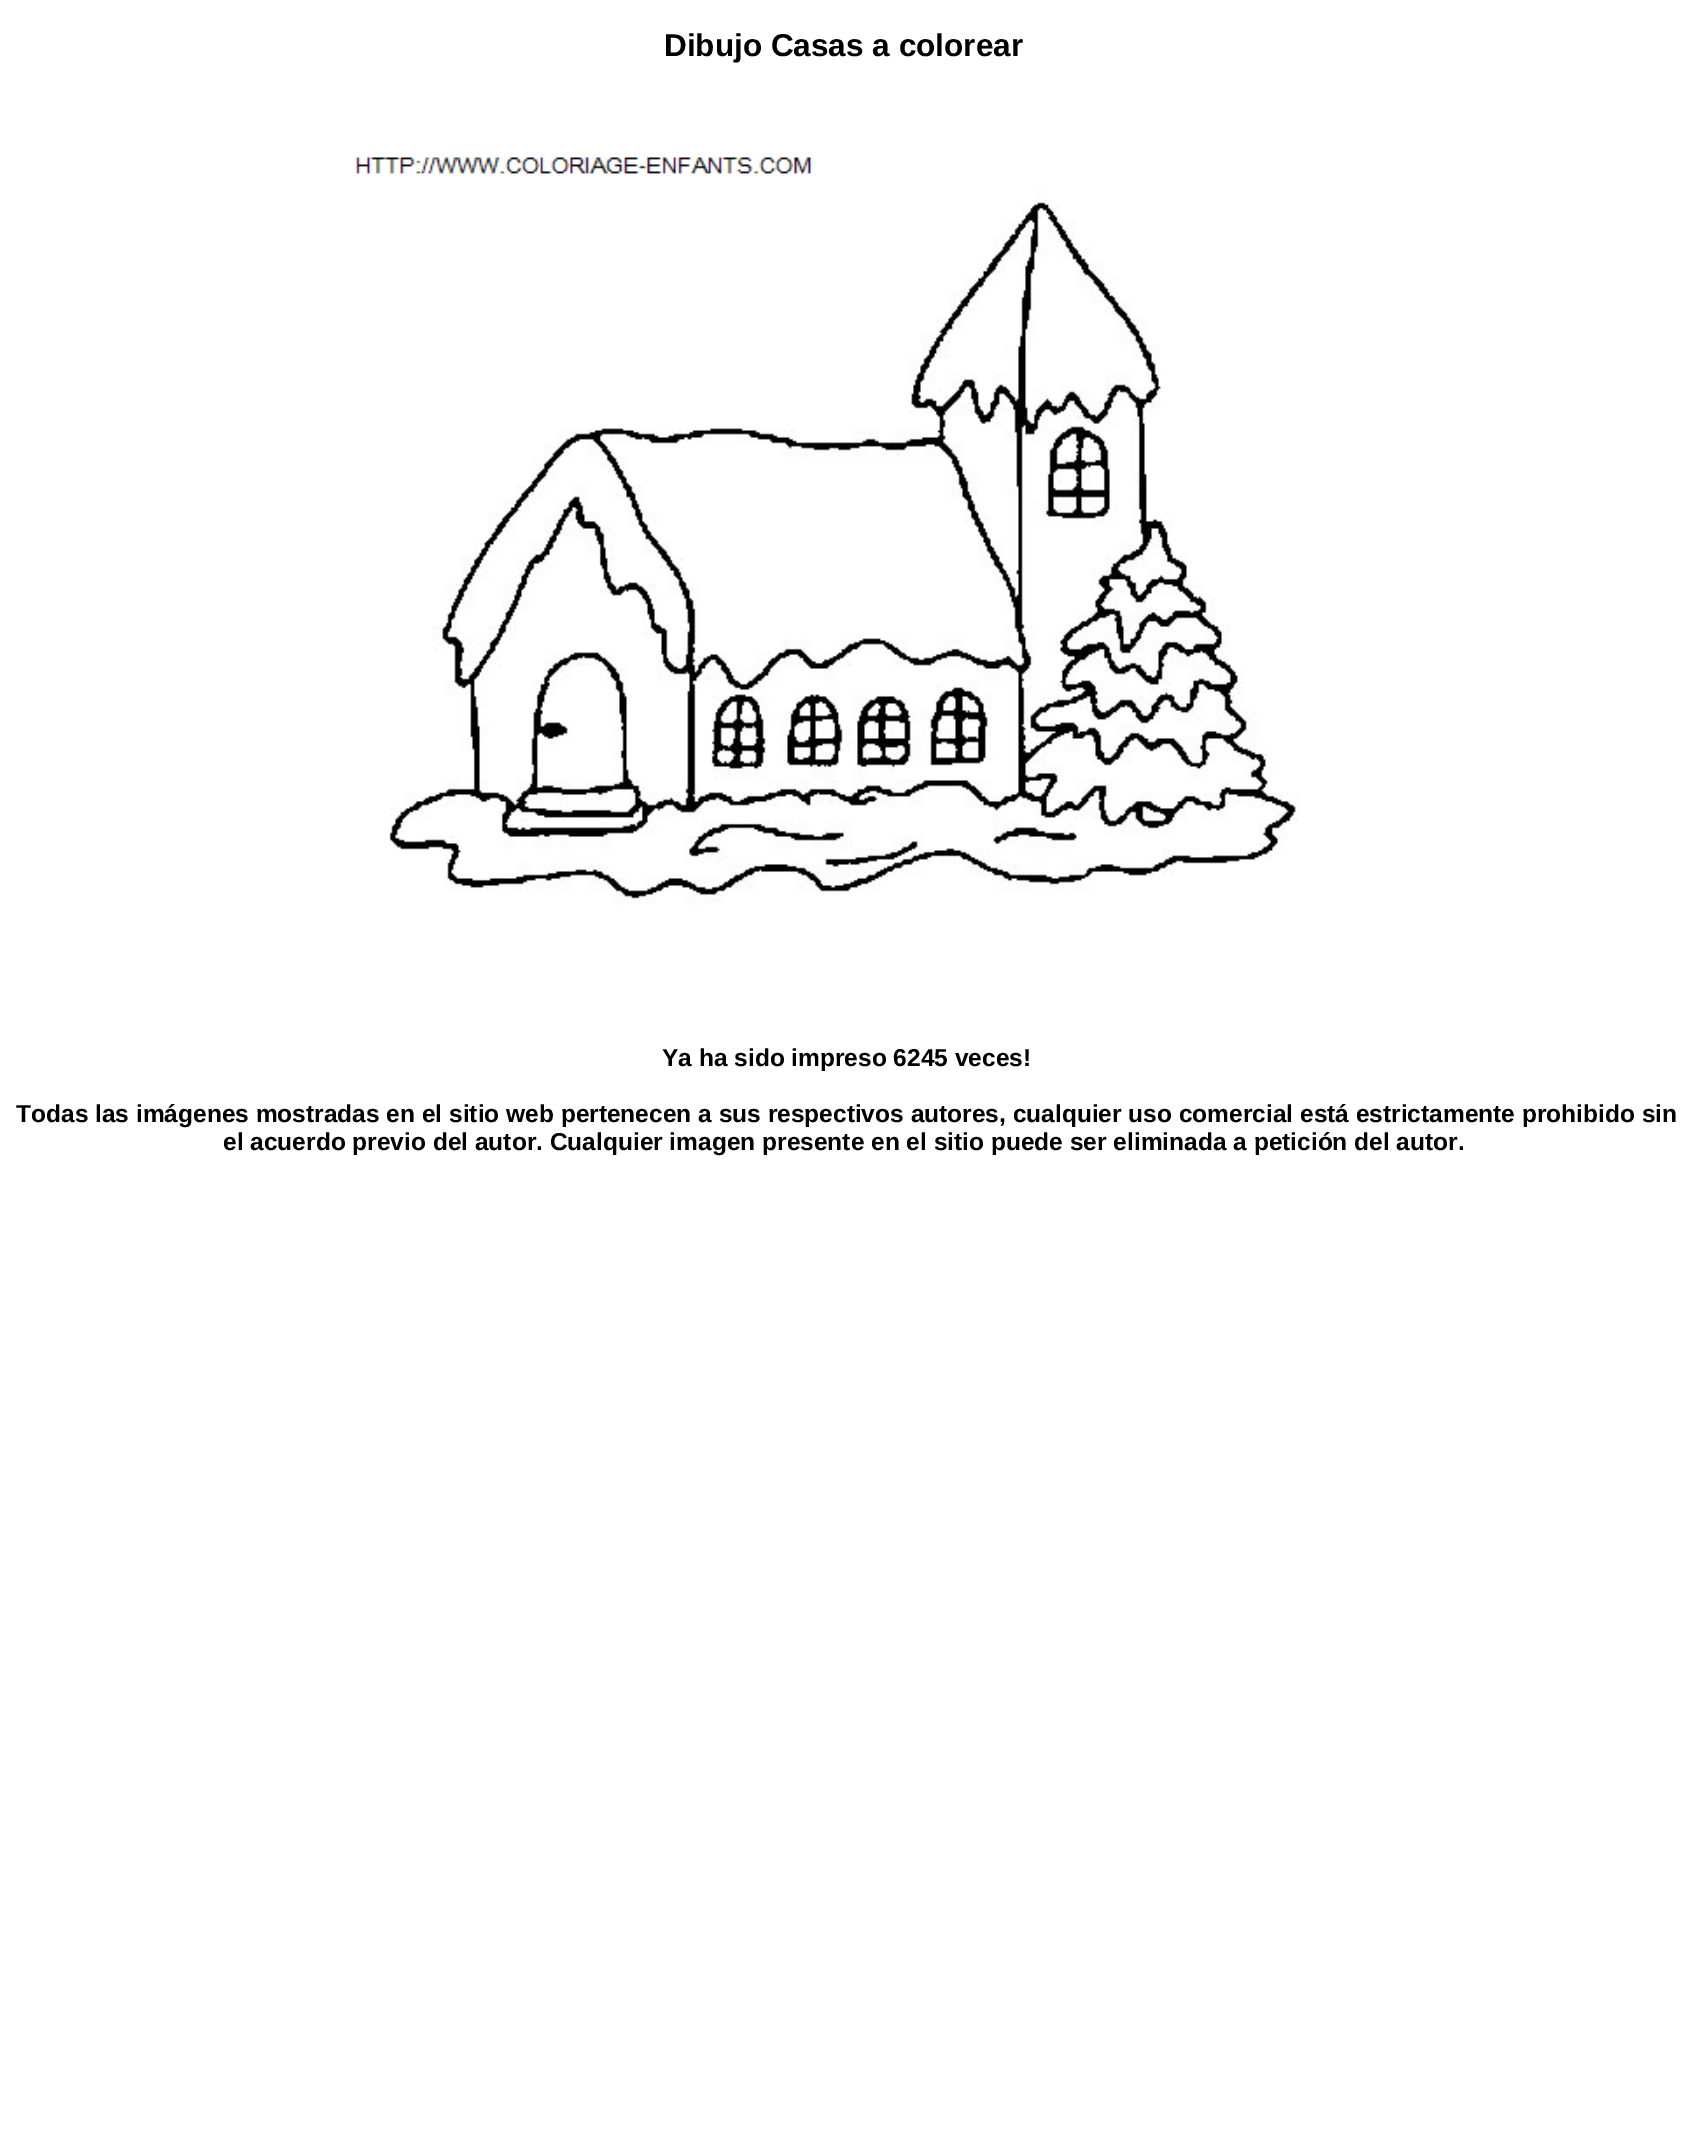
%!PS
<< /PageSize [1687 2139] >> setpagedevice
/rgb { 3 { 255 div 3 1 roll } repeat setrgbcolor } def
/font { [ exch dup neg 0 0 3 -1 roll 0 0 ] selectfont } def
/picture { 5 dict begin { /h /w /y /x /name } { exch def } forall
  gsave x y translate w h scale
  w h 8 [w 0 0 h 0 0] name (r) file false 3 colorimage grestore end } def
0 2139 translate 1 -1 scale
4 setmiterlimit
255 255 255 rgb
0 0 1687 2139 rectfill
(img/1.rgb) 355 157 945 748 picture
/LiberationSans-Bold 31.5 font
0 0 0 rgb
664 56 moveto (Dibujo Casas a colorear) show
/LiberationSans-Bold 24.5 font
[
  [(Ya ha sido impreso 6245 veces!) 662 1066]
  [(Todas las imágenes mostradas en el sitio web pertenecen a sus respectivos autores, cualquier uso comercial está estrictamente prohibido sin) 16 1122]
  [(el acuerdo previo del autor. Cualquier imagen presente en el sitio puede ser eliminada a petición del autor.) 223 1150]
] { aload pop moveto show } forall
showpage
